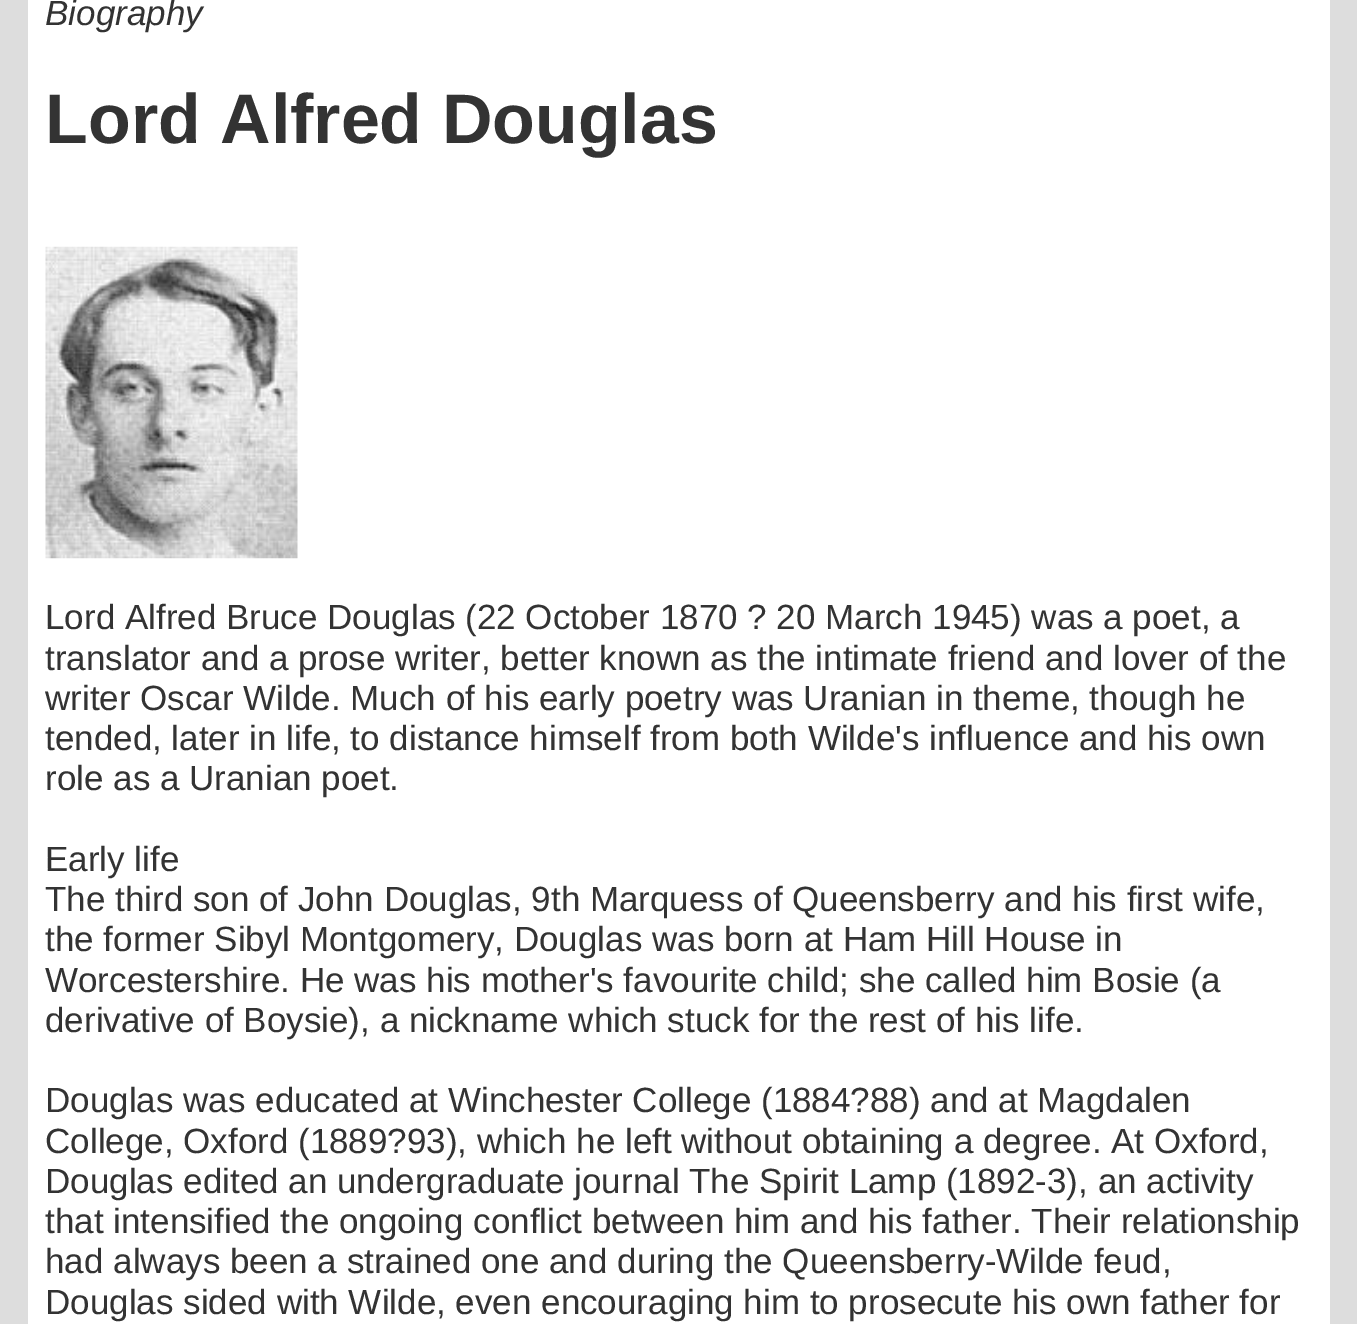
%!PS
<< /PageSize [1357 1324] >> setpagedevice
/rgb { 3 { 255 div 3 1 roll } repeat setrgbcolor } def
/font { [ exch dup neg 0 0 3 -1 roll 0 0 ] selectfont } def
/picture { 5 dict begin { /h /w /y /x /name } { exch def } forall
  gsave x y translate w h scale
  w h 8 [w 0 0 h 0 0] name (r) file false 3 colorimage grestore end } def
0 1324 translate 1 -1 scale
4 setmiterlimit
221 221 221 rgb
0 0 1357 1324 rectfill
255 255 255 rgb
28 0 1302 1324 rectfill
(img/1.rgb) 45 246 253 313 picture
/LiberationSans-Italic 35 font
51 51 51 rgb
45 25 moveto (Biography) show
/LiberationSans-Bold 70 font
45 143 moveto (Lord Alfred Douglas) show
/LiberationSans-Regular 35 font
[
  [(Lord Alfred Bruce Douglas \(22 October 1870 ? 20 March 1945\) was a poet, a) 45 629]
  [(translator and a prose writer, better known as the intimate friend and lover of the) 45 670]
  [(writer Oscar Wilde. Much of his early poetry was Uranian in theme, though he) 45 710]
  [(tended, later in life, to distance himself from both Wilde's influence and his own) 45 750]
  [(role as a Uranian poet.) 45 790]
  [(Early life) 45 871]
  [(The third son of John Douglas, 9th Marquess of Queensberry and his first wife,) 45 911]
  [(the former Sibyl Montgomery, Douglas was born at Ham Hill House in) 45 951]
  [(Worcestershire. He was his mother's favourite child; she called him Bosie \(a) 45 992]
  [(derivative of Boysie\), a nickname which stuck for the rest of his life.) 45 1032]
  [(Douglas was educated at Winchester College \(1884?88\) and at Magdalen) 45 1112]
  [(College, Oxford \(1889?93\), which he left without obtaining a degree. At Oxford,) 45 1153]
  [(Douglas edited an undergraduate journal The Spirit Lamp \(1892-3\), an activity) 45 1193]
  [(that intensified the ongoing conflict between him and his father. Their relationship) 45 1233]
  [(had always been a strained one and during the Queensberry-Wilde feud,) 45 1273]
  [(Douglas sided with Wilde, even encouraging him to prosecute his own father for) 45 1314]
] { aload pop moveto show } forall
showpage
